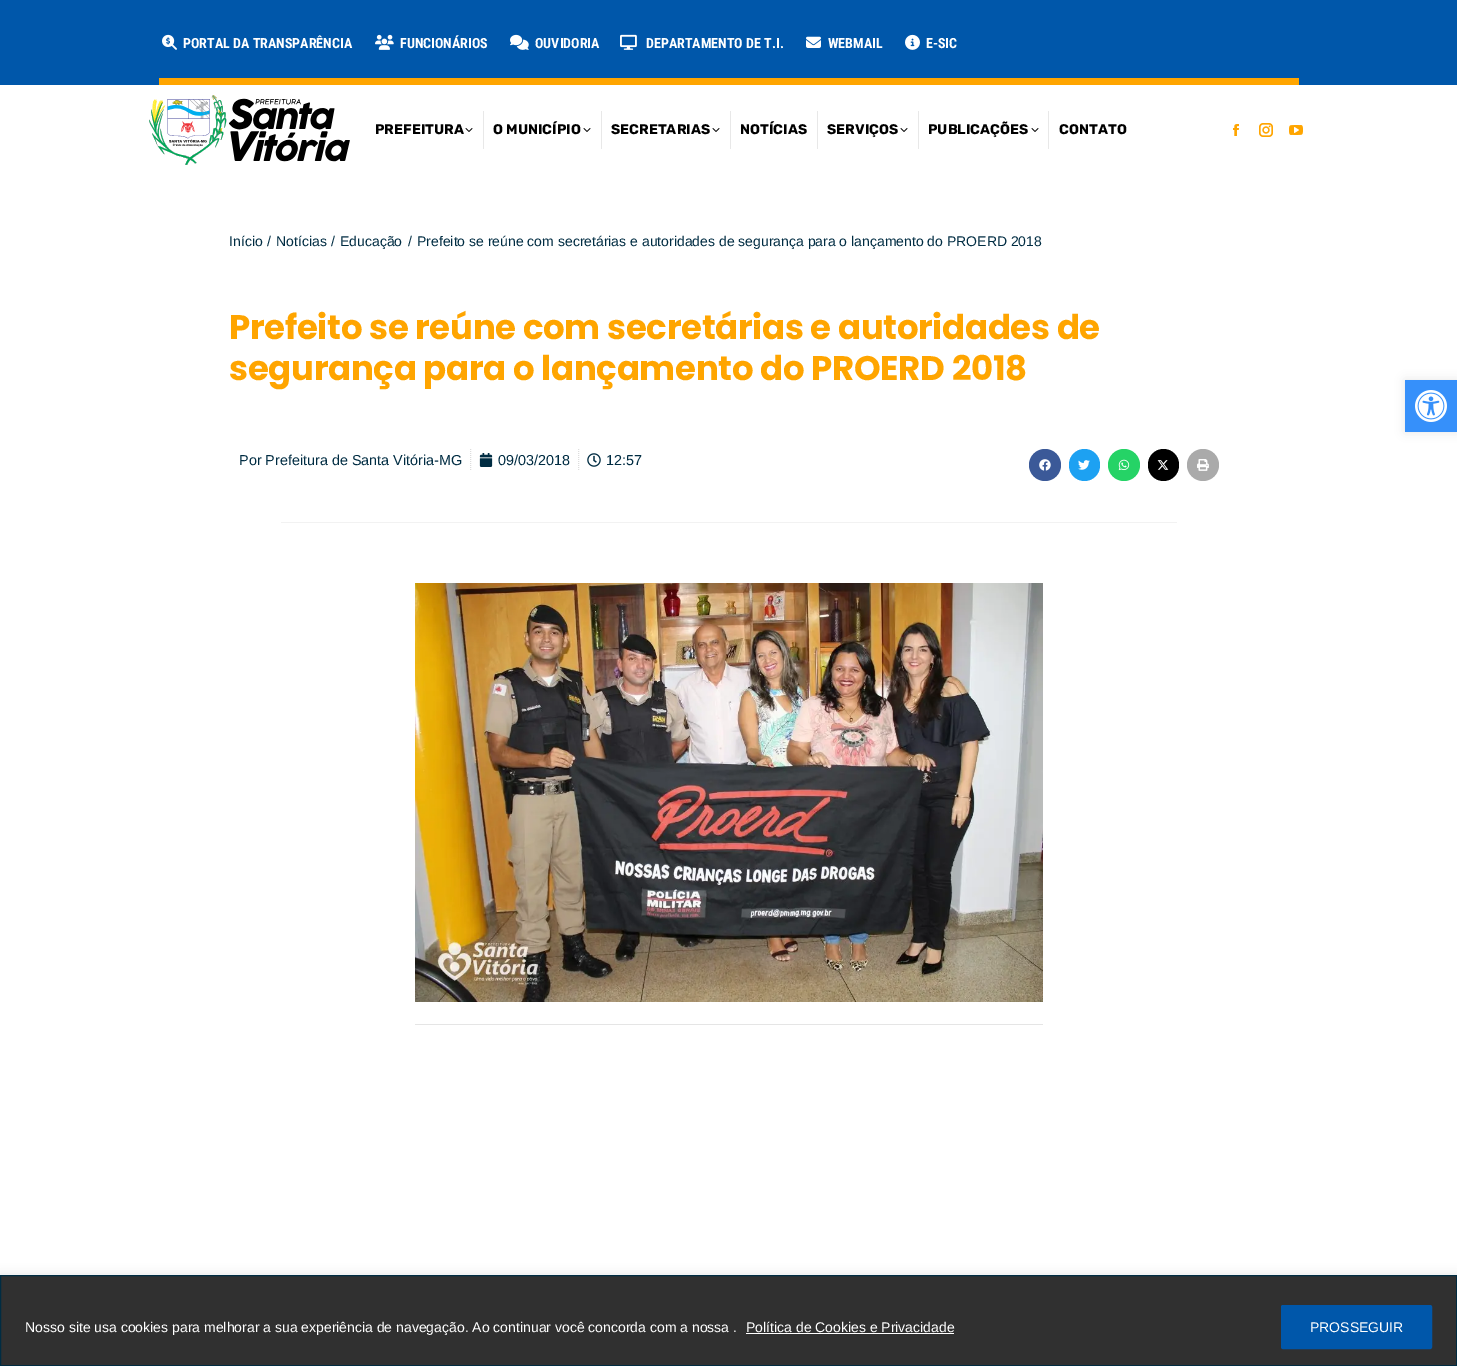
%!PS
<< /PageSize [1457 1366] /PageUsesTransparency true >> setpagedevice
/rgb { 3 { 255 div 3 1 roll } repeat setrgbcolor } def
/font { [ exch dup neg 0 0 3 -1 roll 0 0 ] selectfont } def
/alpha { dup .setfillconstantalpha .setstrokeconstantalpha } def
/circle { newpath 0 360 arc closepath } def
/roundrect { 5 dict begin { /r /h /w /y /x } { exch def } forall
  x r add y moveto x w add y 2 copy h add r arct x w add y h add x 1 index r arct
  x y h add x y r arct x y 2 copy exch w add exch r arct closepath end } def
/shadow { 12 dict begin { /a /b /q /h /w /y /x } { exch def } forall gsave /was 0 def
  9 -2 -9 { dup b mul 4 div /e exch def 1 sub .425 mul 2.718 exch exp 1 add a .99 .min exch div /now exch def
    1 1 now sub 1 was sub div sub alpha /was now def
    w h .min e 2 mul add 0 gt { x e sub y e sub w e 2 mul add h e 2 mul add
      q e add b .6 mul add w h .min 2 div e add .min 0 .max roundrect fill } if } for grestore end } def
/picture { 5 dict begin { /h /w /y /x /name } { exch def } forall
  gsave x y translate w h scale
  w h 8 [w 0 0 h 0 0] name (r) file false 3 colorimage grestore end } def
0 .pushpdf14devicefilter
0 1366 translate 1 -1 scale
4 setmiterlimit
255 255 255 rgb
0 0 1457 1366 rectfill
0 87 170 rgb
0 0 1457 85 rectfill
(img/1.rgb) 162 34 15 16 picture
(img/2.rgb) 375 34 19 16 picture
(img/3.rgb) 510 34 19 16 picture
(img/4.rgb) 620 34 17 16 picture
(img/5.rgb) 806 36 15 12 picture
(img/6.rgb) 905 34 15 16 picture
255 165 0 rgb
159 78 1140 7 rectfill
(img/7.rgb) 149 95 201 70 picture
(img/8.rgb) 465 128 8 4 picture
232 232 232 rgb
483 111 1 38 rectfill
(img/8.rgb) 583 128 8 4 picture
601 111 1 38 rectfill
(img/8.rgb) 712 128 8 4 picture
730 111 1 38 rectfill
817 111 1 38 rectfill
(img/8.rgb) 900 128 8 4 picture
918 111 1 38 rectfill
(img/8.rgb) 1031 128 8 4 picture
1048 111 1 38 rectfill
(img/9.rgb) 1233 124 6 12 picture
(img/10.rgb) 1259 123 14 14 picture
(img/11.rgb) 1289 125 14 10 picture
221 221 221 rgb
[1 1] 0 setdash
470.5 449 moveto 470.5 471 lineto stroke
(img/12.rgb) 479 453 14 14 picture
578.5 449 moveto 578.5 471 lineto stroke
(img/13.rgb) 587 453 14 14 picture
59 89 152 rgb
1045 465 16 circle fill
(img/14.rgb) 1039 459 12 12 picture
29 161 242 rgb
1069 449 31 32 15.5 roundrect fill
(img/15.rgb) 1078 460 12 10 picture
37 211 102 rgb
1124 465 16 circle fill
(img/16.rgb) 1118 459 12 12 picture
0 0 0 rgb
1148 449 31 32 15.5 roundrect fill
(img/17.rgb) 1157 460 12 10 picture
170 170 170 rgb
1203 465 16 circle fill
(img/18.rgb) 1197 459 12 12 picture
242 242 242 rgb
281 522 896 1 rectfill
(img/19.rgb) 415 583 628 419 picture
229 229 229 rgb
415 1024 628 1 rectfill
0 0 0 rgb
1405 380 52 52 0 5 0.1 shadow
54 144 250 rgb
1405 380 52 52 rectfill
(img/20.rgb) 1415 390 32 32 picture
172 171 171 rgb
0 1274 1457 91 0 5 0.3 shadow
48 48 48 rgb
0.5 1275.5 moveto 1456.5 1275.5 lineto 1456.5 1365.5 lineto 0.5 1365.5 lineto closepath gsave fill grestore
0 44 66 rgb
[] 0 setdash
stroke
255 255 255 rgb
746 1333 208 1 rectfill
0 87 170 rgb
1282 1306 149 42 1 roundrect gsave fill grestore
2 setlinewidth
stroke
/RobotoCondensed-Bold 14 font
255 255 255 rgb
[
  [(PORTAL DA TRANSPARÊNCIA) 183 48]
  [(FUNCIONÁRIOS) 400 48]
  [(OUVIDORIA) 535 48]
  [(DEPARTAMENTO DE T.I.) 646 48]
  [(WEBMAIL) 828 48]
  [(E-SIC) 926 48]
] { aload pop moveto show } forall
/Rubik-Bold 14 font
0 0 0 rgb
[
  [(PREFEITURA) 375 134]
  [(O MUNICÍPIO) 493 134]
  [(SECRETARIAS) 611 134]
  [(NOTÍCIAS) 740 134]
  [(SERVIÇOS) 827 134]
  [(PUBLICAÇÕES) 928 134]
  [(CONTATO) 1059 134]
] { aload pop moveto show } forall
/LiberationSans-Regular 14 font
0 44 66 rgb
[
  [(Início) 229 246]
  [(/) 267 246]
  [(Notícias) 276 246]
  [(/) 331 246]
  [(Educação) 340 246]
  [(/) 408 246]
  [(Prefeito se reúne com secretárias e autoridades de segurança para o lançamento do PROERD 2018) 417 246]
] { aload pop moveto show } forall
/Poppins-Bold 34 font
255 165 0 rgb
229 339 moveto -0.3 0 (Prefeito se reúne com secretárias e autoridades de) ashow
229 380 moveto -0.3 0 (segurança para o lançamento do PROERD 2018) ashow
/LiberationSans-Regular 14.4 font
0 44 66 rgb
[
  [(Por Prefeitura de Santa Vitória-MG) 239 465]
  [(09/03/2018) 498 465]
  [(12:57) 606 465]
] { aload pop moveto show } forall
/LiberationSans-Regular 14 font
255 255 255 rgb
[
  [(Nosso site usa cookies para melhorar a sua experiência de navegação. Ao continuar você concorda com a nossa .) 25 1332]
  [(Política de Cookies e Privacidade) 746 1332]
  [(PROSSEGUIR) 1310 1332]
] { aload pop moveto show } forall
.poppdf14devicefilter showpage
